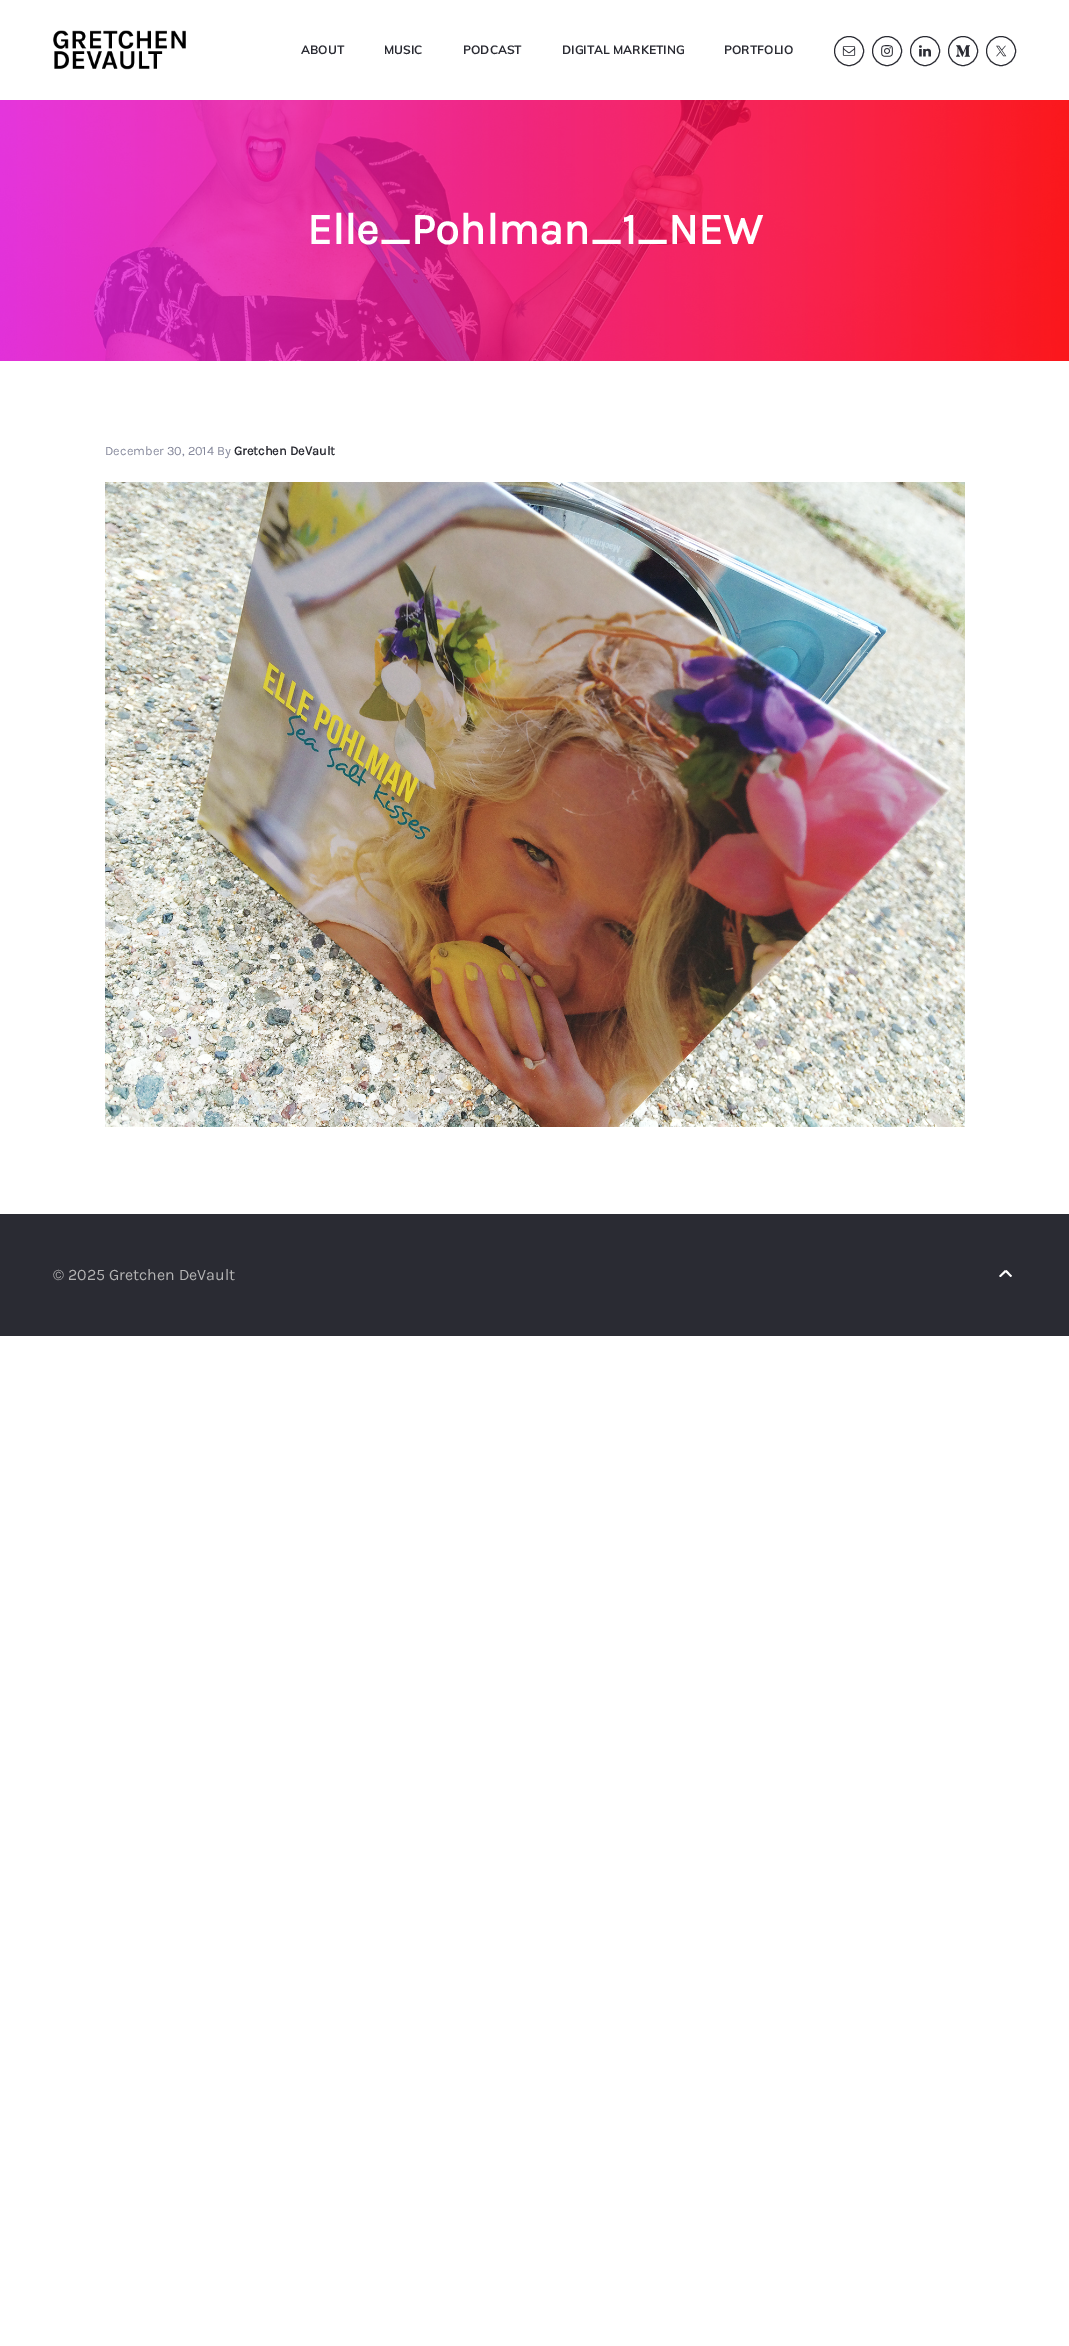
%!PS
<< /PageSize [1069 2346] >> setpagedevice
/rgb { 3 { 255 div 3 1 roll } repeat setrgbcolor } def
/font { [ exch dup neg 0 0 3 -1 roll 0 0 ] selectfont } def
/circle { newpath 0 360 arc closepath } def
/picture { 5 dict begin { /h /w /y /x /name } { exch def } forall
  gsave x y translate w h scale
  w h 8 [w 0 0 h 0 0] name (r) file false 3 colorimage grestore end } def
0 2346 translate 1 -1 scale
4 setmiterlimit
255 255 255 rgb
0 0 1069 2346 rectfill
(img/1.rgb) 53 30 133 40 picture
42 43 51 rgb
849 51 14.5 circle stroke
(img/2.rgb) 842 46 14 10 picture
887 51 14.5 circle stroke
(img/3.rgb) 881 45 12 12 picture
925 51 14.5 circle stroke
(img/4.rgb) 919 45 12 12 picture
963 51 14.5 circle stroke
(img/5.rgb) 956 45 14 12 picture
1001 51 14.5 circle stroke
(img/6.rgb) 996 45 11 12 picture
(img/7.rgb) 0 100 1069 261 picture
(img/8.rgb) 105 482 860 645 picture
0 1214 1069 122 rectfill
255 255 255 rgb
999 1276 moveto 1005 1270 lineto 1006.5 1271.5 lineto 1000.5 1277 lineto closepath fill
1005 1271.5 moveto 1006.5 1270 lineto 1012 1276 lineto 1010.5 1277 lineto closepath fill
/Muli-Bold 12 font
42 43 51 rgb
[
  [(ABOUT) 301 54]
  [(MUSIC) 384 54]
  [(PODCAST) 463 54]
  [(DIGITAL MARKETING) 562 54]
  [(PORTFOLIO) 724 54]
] { aload pop moveto show } forall
/Karla-Bold 44 font
255 255 255 rgb
307 244 moveto (Elle_Pohlman_1_NEW) show
/Karla-Regular 12.75 font
133 136 155 rgb
105 455 moveto (December 30, 2014 By) show
/Karla-Bold 12.75 font
42 43 51 rgb
234 455 moveto (Gretchen DeVault) show
/Karla-Regular 16 font
179 179 179 rgb
53 1280 moveto (© 2025 Gretchen DeVault) show
showpage
